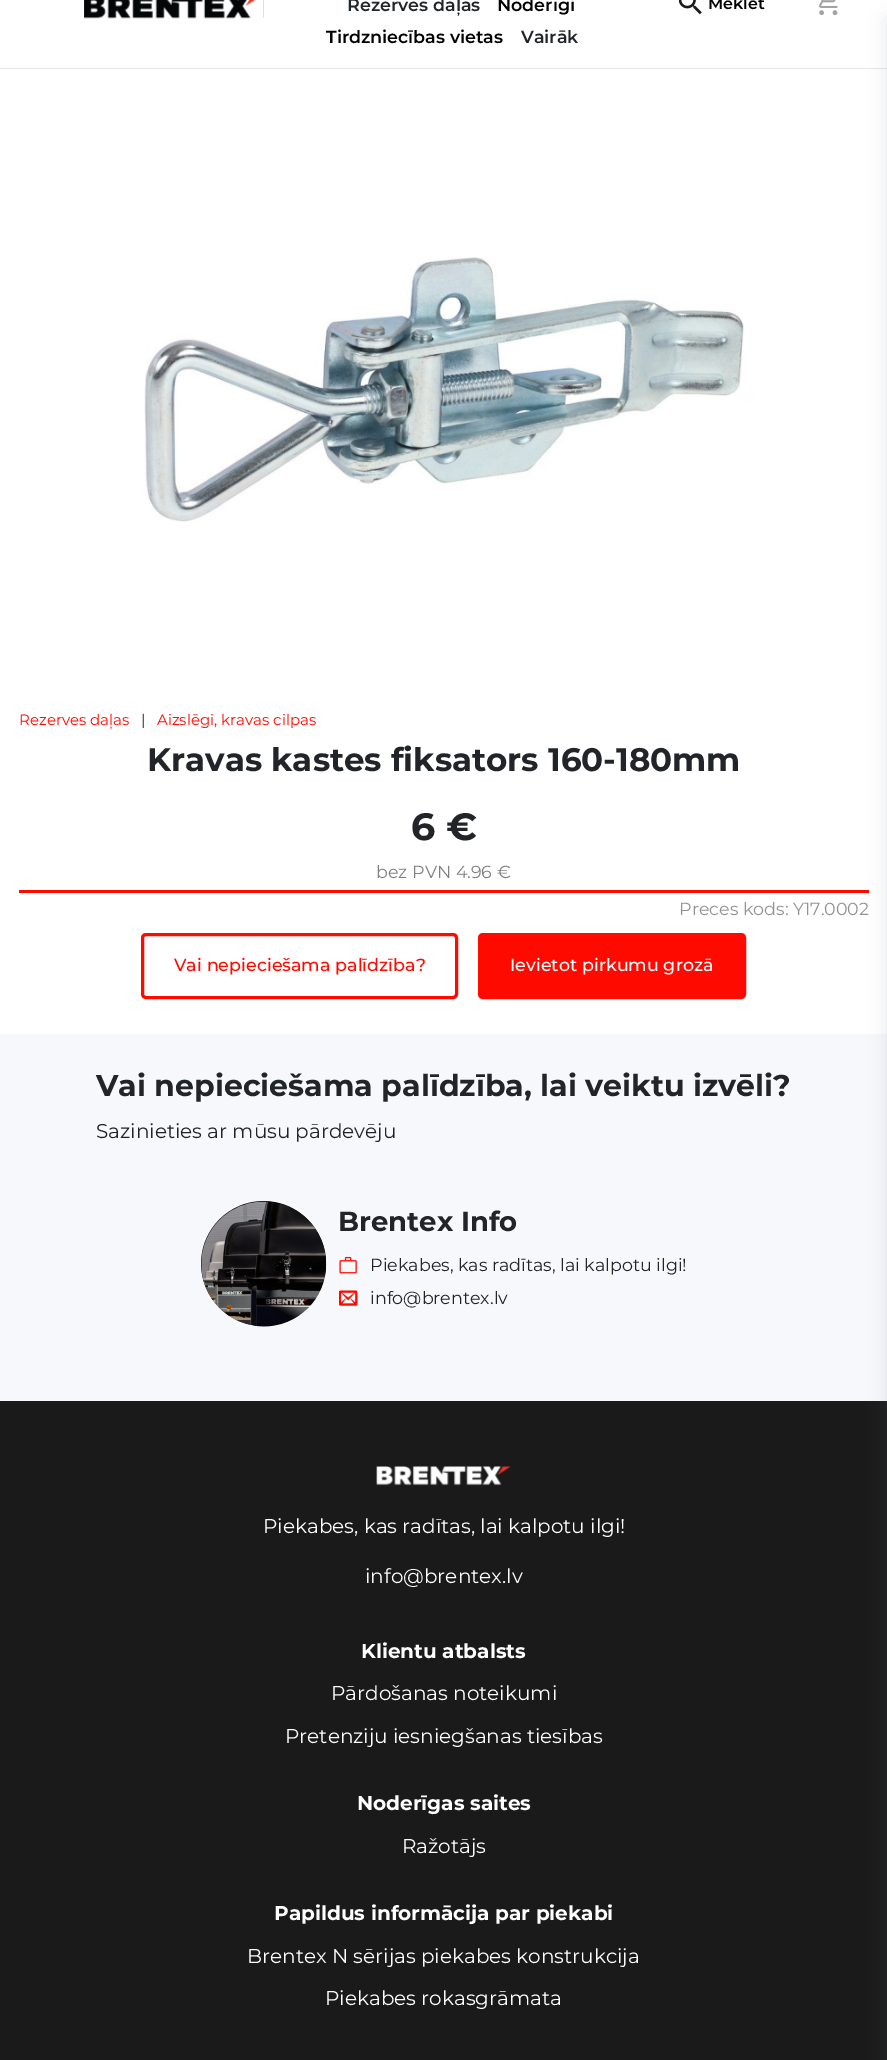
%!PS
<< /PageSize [887 2060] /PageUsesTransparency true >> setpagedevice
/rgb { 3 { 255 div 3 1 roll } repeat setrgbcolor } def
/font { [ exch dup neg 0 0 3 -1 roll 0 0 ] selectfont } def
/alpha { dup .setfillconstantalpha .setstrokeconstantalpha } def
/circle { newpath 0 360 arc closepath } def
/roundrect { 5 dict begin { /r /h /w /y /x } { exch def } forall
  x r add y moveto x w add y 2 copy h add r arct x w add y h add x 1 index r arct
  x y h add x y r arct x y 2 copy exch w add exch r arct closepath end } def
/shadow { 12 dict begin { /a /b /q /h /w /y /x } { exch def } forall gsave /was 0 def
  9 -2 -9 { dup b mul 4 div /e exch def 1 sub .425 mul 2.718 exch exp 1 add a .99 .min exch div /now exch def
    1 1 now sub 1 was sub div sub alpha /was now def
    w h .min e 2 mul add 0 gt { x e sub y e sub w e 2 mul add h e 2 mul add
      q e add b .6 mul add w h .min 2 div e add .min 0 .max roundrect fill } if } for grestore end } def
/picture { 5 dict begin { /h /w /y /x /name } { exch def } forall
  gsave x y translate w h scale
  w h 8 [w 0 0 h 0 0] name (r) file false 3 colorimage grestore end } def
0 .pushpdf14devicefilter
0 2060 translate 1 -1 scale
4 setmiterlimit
255 255 255 rgb
0 0 887 2060 rectfill
230 230 230 rgb
0 68 887 1 rectfill
(img/1.rgb) 84 0 180 19 picture
(img/2.rgb) 679 0 23 15 picture
(img/3.rgb) 819 0 19 15 picture
[
  [19 890 850 3 255 10 0]
  [0 1034 887 367 246 248 252]
  [0 1401 887 659 26 26 26]
] { aload pop rgb rectfill } forall
100 116 139 rgb
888 20 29 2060 0 10 0.2 shadow
(img/4.rgb) 144 257 600 265 picture
255 10 0 rgb
3 setlinewidth
142.5 934.5 314 63 3.5 roundrect stroke
479.5 934.5 265 63 3.5 roundrect gsave fill grestore
stroke
0 0 0 rgb
263.5 1263.5 62.5 circle fill
(img/5.rgb) 201 1201 126 126 picture
(img/6.rgb) 339 1256 18 18 picture
(img/7.rgb) 339 1290 19 16 picture
(img/8.rgb) 376 1466 135 20 picture
/Montserrat-SemiBold 17.5 font
33 37 41 rgb
347 11 moveto (Rezerves daļas) show
0 0 0 rgb
497 11 moveto (Noderīgi) show
326 43 moveto (Tirdzniecības vietas) show
33 37 41 rgb
521 43 moveto (Vairāk) show
/Montserrat-SemiBold 16 font
0 0 0 rgb
708 9 moveto (Meklēt) show
/Montserrat-Regular 15 font
255 10 0 rgb
19 725 moveto (Rezerves daļas) show
33 37 41 rgb
141 725 moveto (|) show
255 10 0 rgb
157 725 moveto (Aizslēgi, kravas cilpas) show
/Montserrat-Bold 32.5 font
33 37 41 rgb
147 771 moveto (Kravas kastes fiksators 160-180mm) show
/Montserrat-Bold 38 font
411 840 moveto (6 €) show
/Montserrat-Regular 17.5 font
128 128 128 rgb
376 878 moveto (bez PVN 4.96 €) show
144 146 148 rgb
679 915 moveto (Preces kods: Y17.0002) show
/Montserrat-Medium 17.5 font
255 10 0 rgb
174 971 moveto (Vai nepieciešama palīdzība?) show
255 255 255 rgb
510 971 moveto (Ievietot pirkumu grozā) show
/Montserrat-Bold 30 font
33 37 41 rgb
96 1096 moveto (Vai nepieciešama palīdzība, lai veiktu izvēli?) show
/Montserrat-Regular 20 font
96 1138 moveto (Sazinieties ar mūsu pārdevēju) show
/Montserrat-Bold 27.5 font
338 1231 moveto (Brentex Info) show
/Montserrat-Regular 17.5 font
370 1271 moveto (Piekabes, kas radītas, lai kalpotu ilgi!) show
370 1304 moveto (info@brentex.lv) show
/Montserrat-Regular 20 font
255 255 255 rgb
263 1533 moveto (Piekabes, kas radītas, lai kalpotu ilgi!) show
365 1583 moveto (info@brentex.lv) show
/Montserrat-Bold 20 font
361 1658 moveto (Klientu atbalsts) show
/Montserrat-Regular 20 font
331 1700 moveto (Pārdošanas noteikumi) show
285 1743 moveto (Pretenziju iesniegšanas tiesības) show
/Montserrat-Bold 20 font
357 1810 moveto (Noderīgas saites) show
/Montserrat-Regular 20 font
402 1853 moveto (Ražotājs) show
/Montserrat-Bold 20 font
274 1920 moveto (Papildus informācija par piekabi) show
/Montserrat-Regular 20 font
247 1963 moveto (Brentex N sērijas piekabes konstrukcija) show
325 2005 moveto (Piekabes rokasgrāmata) show
.poppdf14devicefilter showpage
